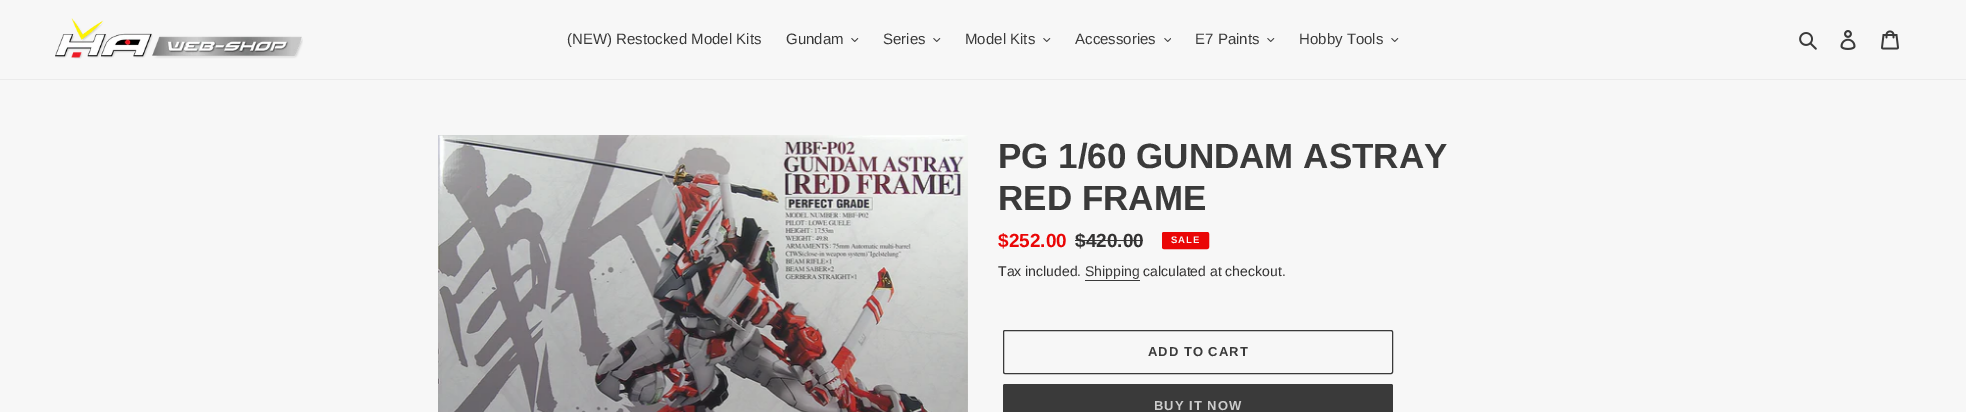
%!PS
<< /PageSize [1966 412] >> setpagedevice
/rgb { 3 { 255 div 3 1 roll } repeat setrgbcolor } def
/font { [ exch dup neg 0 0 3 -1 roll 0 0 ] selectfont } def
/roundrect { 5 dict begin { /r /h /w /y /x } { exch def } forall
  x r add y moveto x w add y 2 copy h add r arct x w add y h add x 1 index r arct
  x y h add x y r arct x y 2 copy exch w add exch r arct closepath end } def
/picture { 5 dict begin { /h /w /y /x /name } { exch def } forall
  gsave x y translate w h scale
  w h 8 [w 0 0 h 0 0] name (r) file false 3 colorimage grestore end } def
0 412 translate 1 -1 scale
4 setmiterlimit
247 247 247 rgb
0 0 1966 412 rectfill
235 235 235 rgb
0 79 1966 1 rectfill
(img/1.rgb) 55 18 248 41 picture
(img/2.rgb) 851 38 8 4 picture
(img/2.rgb) 933 38 8 4 picture
(img/2.rgb) 1043 38 8 4 picture
(img/3.rgb) 1164 38 7 4 picture
(img/2.rgb) 1267 38 8 4 picture
(img/2.rgb) 1391 38 8 4 picture
(img/4.rgb) 1799 32 18 18 picture
(img/5.rgb) 1840 30 16 20 picture
(img/6.rgb) 1881 30 18 20 picture
(img/7.rgb) 438 135 530 277 picture
51 50 50 rgb
1075 240 68 1 rectfill
234 6 6 rgb
1162.5 232.5 46 16 1.5 roundrect gsave fill grestore
stroke
58 58 58 rgb
1085 280 55 1 rectfill
1003.5 330.5 389 43 1.5 roundrect stroke
1003 384 390 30 2 roundrect fill
/LiberationSans-Regular 15 font
[
  [(\(NEW\) Restocked Model Kits) 567 44]
  [(Gundam) 786 44]
  [(Series) 883 44]
  [(Model Kits) 965 44]
  [(Accessories) 1075 44]
  [(E7 Paints) 1195 44]
  [(Hobby Tools) 1299 44]
] { aload pop moveto show } forall
/LiberationSans-Bold 35 font
998 168 moveto (PG 1/60 GUNDAM ASTRAY) show
998 210 moveto (RED FRAME) show
/LiberationSans-Bold 19 font
234 6 6 rgb
998 247 moveto ($252.00) show
51 50 50 rgb
1075 247 moveto ($420.00) show
/LiberationSans-Bold 9.5 font
247 247 247 rgb
1171 243 moveto 1 0 (SALE) ashow
/LiberationSans-Regular 14 font
51 50 50 rgb
998 276 moveto (Tax included.) show
58 58 58 rgb
1085 276 moveto (Shipping) show
51 50 50 rgb
1143 276 moveto (calculated at checkout.) show
/LiberationSans-Bold 13 font
58 58 58 rgb
1148 356 moveto 1 0 (ADD TO CART) ashow
204 204 204 rgb
1154 410 moveto 1 0 (BUY IT NOW) ashow
showpage
